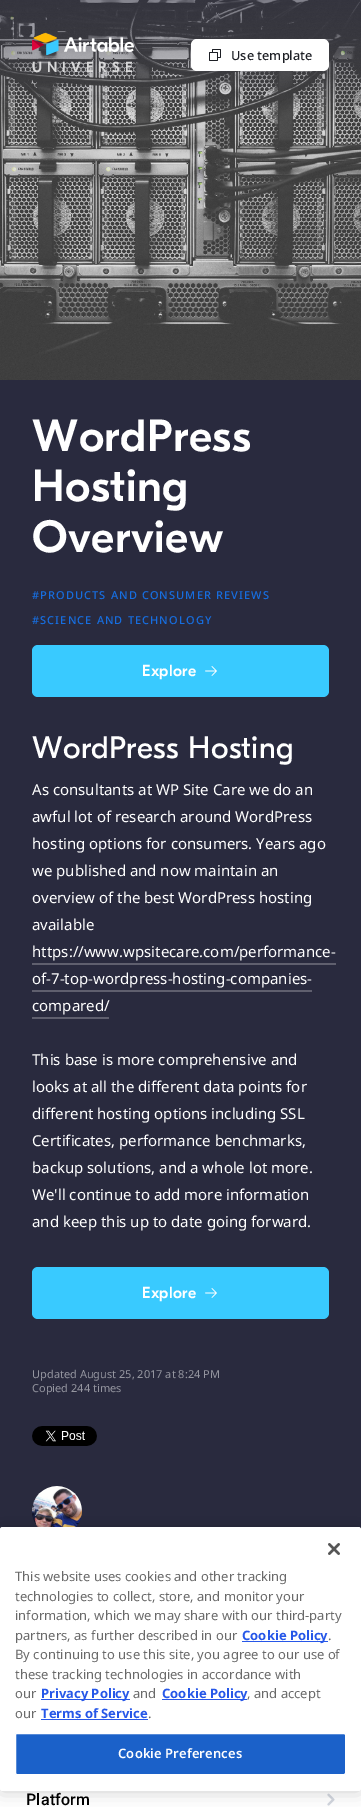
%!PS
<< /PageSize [361 1807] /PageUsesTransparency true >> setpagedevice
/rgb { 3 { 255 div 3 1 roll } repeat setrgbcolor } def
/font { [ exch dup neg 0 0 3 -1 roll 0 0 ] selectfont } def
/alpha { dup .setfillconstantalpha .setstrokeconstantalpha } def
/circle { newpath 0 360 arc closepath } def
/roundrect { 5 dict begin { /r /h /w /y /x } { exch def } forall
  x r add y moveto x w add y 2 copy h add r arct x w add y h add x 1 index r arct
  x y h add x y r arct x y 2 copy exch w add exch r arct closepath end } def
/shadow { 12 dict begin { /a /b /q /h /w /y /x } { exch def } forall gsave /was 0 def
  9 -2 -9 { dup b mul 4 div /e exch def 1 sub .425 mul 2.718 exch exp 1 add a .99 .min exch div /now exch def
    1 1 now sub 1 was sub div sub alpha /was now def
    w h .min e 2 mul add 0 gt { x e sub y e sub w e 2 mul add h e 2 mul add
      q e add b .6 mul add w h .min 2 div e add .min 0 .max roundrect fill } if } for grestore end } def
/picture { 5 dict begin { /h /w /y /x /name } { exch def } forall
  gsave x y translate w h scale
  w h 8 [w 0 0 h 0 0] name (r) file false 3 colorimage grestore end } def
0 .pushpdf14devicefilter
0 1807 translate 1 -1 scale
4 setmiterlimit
255 255 255 rgb
0 0 361 1807 rectfill
41 42 62 rgb
0 380 361 1150 rectfill
(img/1.rgb) 0 0 361 380 picture
255 255 255 rgb
191 39 138 32 6 roundrect fill
(img/2.rgb) 209 49 12 12 picture
(img/3.rgb) 32 33 102 23 picture
57 202 255 rgb
32 645 297 52 6 roundrect fill
(img/4.rgb) 205 666 12 10 picture
[
  [32 963 304 2 95 95 110]
  [32 990 280 2 95 95 110]
  [32 1017 77 2 95 95 110]
] { aload pop rgb rectfill } forall
57 202 255 rgb
32 1267 297 52 6 roundrect fill
(img/4.rgb) 205 1288 12 10 picture
(img/5.rgb) 32 1426 65 20 picture
39 40 59 rgb
57 1511 25 circle fill
(img/6.rgb) 32 1486 50 41 picture
(img/7.rgb) 327 1793 8 13 picture
0 0 0 rgb
0 1527 361 264 2.5 9 0.2 shadow
255 255 255 rgb
0 1527 361 264 2.5 roundrect fill
(img/8.rgb) 328 1543 12 12 picture
[
  [242 1641 86 1 38 87 232]
  [41 1699 89 1 38 87 232]
  [162 1699 85 1 38 87 232]
  [41 1719 107 1 38 87 232]
] { aload pop rgb rectfill } forall
27 97 201 rgb
15.5 1733.5 330 41 1.5 roundrect gsave fill grestore
255 255 255 rgb
stroke
/NotoSans-Medium 12.75 font
29 31 37 rgb
231 60 moveto (Use template) show
/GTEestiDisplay-Medium 14.5 font
215 215 216 rgb
32 72 moveto 5 0 (UNIVERSE) ashow
/GTEestiDisplay-Medium 45 font
255 255 255 rgb
32 451 moveto 0.5 0 (WordPress) ashow
32 501 moveto 0.5 0 (Hosting) ashow
32 552 moveto 0.5 0 (Overview) ashow
/NotoSans-Medium 11 font
22 110 225 rgb
32 599 moveto 1.1 0 (#PRODUCTS AND CONSUMER REVIEWS) ashow
32 624 moveto 1.1 0 (#SCIENCE AND TECHNOLOGY) ashow
/GTEestiDisplay-Medium 16 font
255 255 255 rgb
142 676 moveto 0.25 0 (Explore) ashow
/GTEestiDisplay-Regular 31 font
32 758 moveto 0.3 0 (WordPress Hosting) ashow
/NotoSans-Regular 15 font
[
  [(As consultants at WP Site Care we do an) 32 795]
  [(awful lot of research around WordPress) 32 822]
  [(hosting options for consumers. Years ago) 32 849]
  [(we published and now maintain an) 32 876]
  [(overview of the best WordPress hosting) 32 903]
  [(available) 32 930]
  [(https://www.wpsitecare.com/performance-) 32 957]
  [(of-7-top-wordpress-hosting-companies-) 32 984]
  [(compared/) 32 1011]
  [(This base is more comprehensive and) 32 1065]
  [(looks at all the different data points for) 32 1092]
  [(different hosting options including SSL) 32 1119]
  [(Certificates, performance benchmarks,) 32 1146]
  [(backup solutions, and a whole lot more.) 32 1173]
  [(We'll continue to add more information) 32 1200]
  [(and keep this up to date going forward.) 32 1227]
] { aload pop moveto show } forall
/GTEestiDisplay-Medium 16 font
142 1298 moveto 0.25 0 (Explore) ashow
/NotoSans-Regular 11 font
148 149 159 rgb
32 1378 moveto (Updated August 25, 2017 at 8:24 PM) show
32 1392 moveto (Copied 244 times) show
/Roboto-Medium 16 font
0 0 0 rgb
26 1805 moveto 0.25 0 (Platform) ashow
/NotoSans-Regular 13 font
105 105 105 rgb
[
  [(This website uses cookies and other tracking) 15 1581]
  [(technologies to collect, store, and monitor your) 15 1601]
  [(information, which we may share with our third-party) 15 1620]
  [(partners, as further described in our) 15 1640]
] { aload pop moveto show } forall
/NotoSans-Bold 13 font
38 87 232 rgb
242 1640 moveto (Cookie Policy) show
/NotoSans-Regular 13 font
105 105 105 rgb
[
  [(.) 328 1640]
  [(By continuing to use this site, you agree to our use of) 15 1659]
  [(these tracking technologies in accordance with) 15 1679]
  [(our) 15 1698]
] { aload pop moveto show } forall
/NotoSans-Bold 13 font
38 87 232 rgb
41 1698 moveto (Privacy Policy) show
/NotoSans-Regular 13 font
105 105 105 rgb
133 1698 moveto (and) show
/NotoSans-Bold 13 font
38 87 232 rgb
162 1698 moveto (Cookie Policy) show
/NotoSans-Regular 13 font
105 105 105 rgb
247 1698 moveto (, and accept) show
15 1718 moveto (our) show
/NotoSans-Bold 13 font
38 87 232 rgb
41 1718 moveto (Terms of Service) show
/NotoSans-Regular 13 font
105 105 105 rgb
148 1718 moveto (.) show
/NotoSans-SemiBold 13 font
255 255 255 rgb
118 1758 moveto 0.1 0 (Cookie Preferences) ashow
.poppdf14devicefilter showpage
